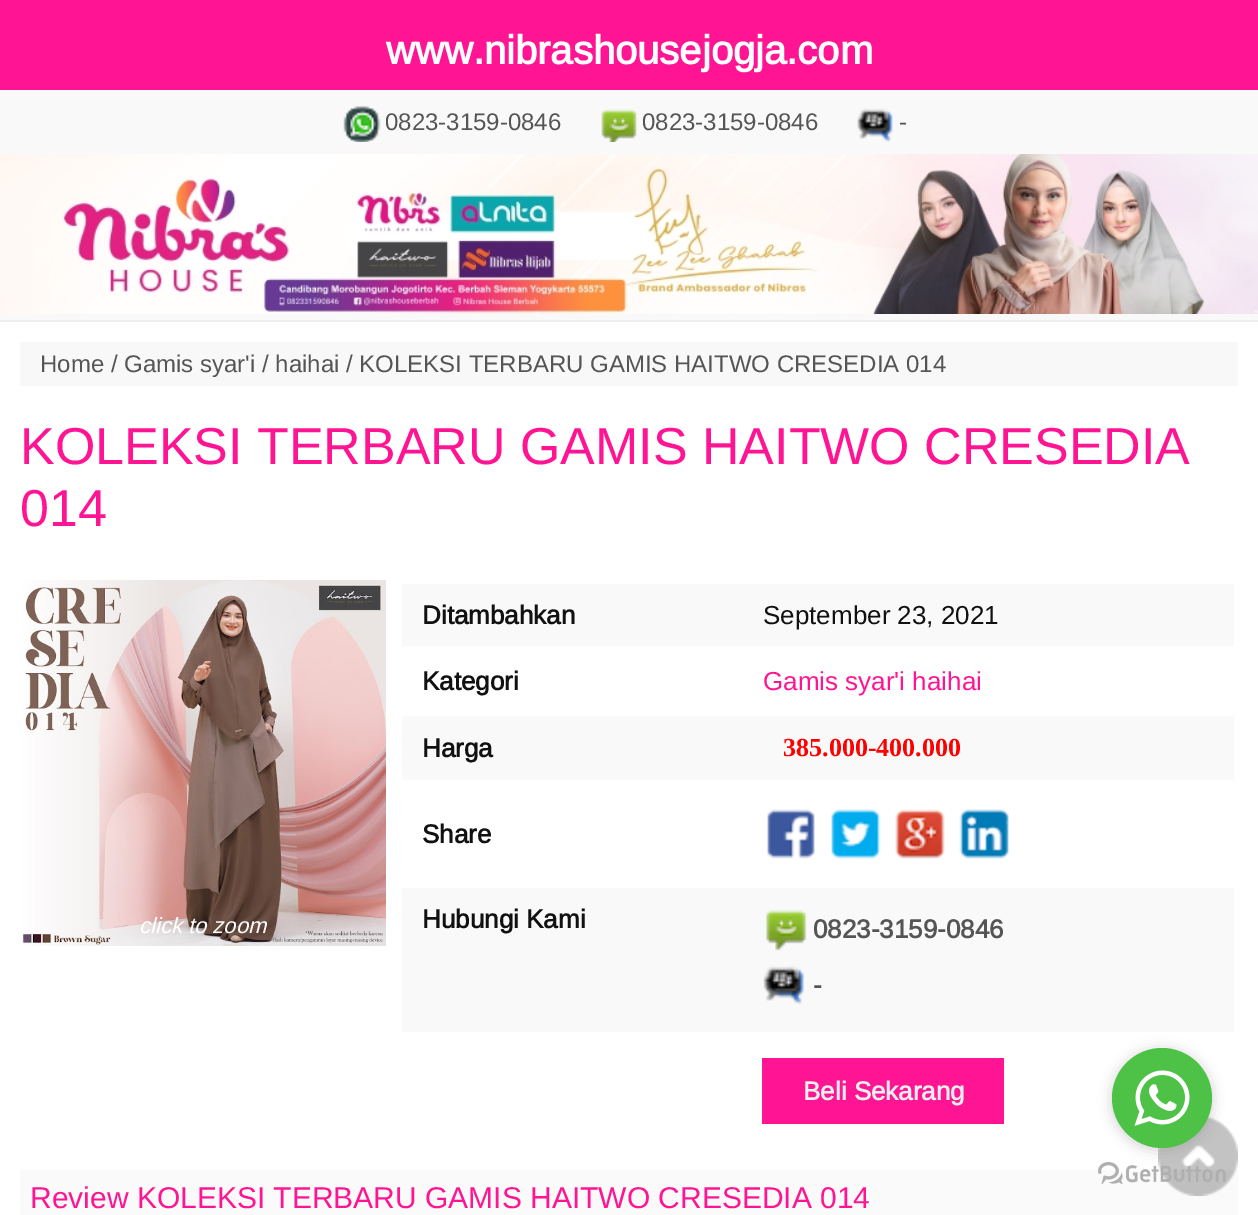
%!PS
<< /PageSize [1258 1215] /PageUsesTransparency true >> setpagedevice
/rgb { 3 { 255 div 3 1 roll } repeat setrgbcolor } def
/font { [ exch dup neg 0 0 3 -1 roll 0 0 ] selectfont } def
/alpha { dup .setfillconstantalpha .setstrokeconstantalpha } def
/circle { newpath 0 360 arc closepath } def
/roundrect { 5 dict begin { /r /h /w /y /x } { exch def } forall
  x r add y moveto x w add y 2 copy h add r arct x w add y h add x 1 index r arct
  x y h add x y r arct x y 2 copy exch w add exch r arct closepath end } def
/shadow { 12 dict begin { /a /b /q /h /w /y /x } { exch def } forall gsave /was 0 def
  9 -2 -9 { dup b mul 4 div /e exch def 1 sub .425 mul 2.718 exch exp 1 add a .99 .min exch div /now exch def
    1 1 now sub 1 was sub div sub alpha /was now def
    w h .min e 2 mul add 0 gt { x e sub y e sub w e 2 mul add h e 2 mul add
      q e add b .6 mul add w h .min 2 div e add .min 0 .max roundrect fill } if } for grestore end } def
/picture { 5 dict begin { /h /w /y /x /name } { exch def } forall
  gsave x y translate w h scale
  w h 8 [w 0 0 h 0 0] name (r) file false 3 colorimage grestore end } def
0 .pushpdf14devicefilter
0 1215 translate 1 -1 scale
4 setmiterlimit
255 255 255 rgb
0 0 1258 1215 rectfill
[
  [0 0 1258 90 255 20 147]
  [0 90 1258 230 249 249 249]
  [0 320 1258 2 238 238 238]
] { aload pop rgb rectfill } forall
(img/1.rgb) 343 106 38 36 picture
(img/2.rgb) 601 109 36 33 picture
(img/3.rgb) 857 108 36 34 picture
(img/4.rgb) 0 154 1258 160 picture
248 248 248 rgb
20 342 1218 44 rectfill
(img/5.rgb) 21 580 365 366 picture
249 249 249 rgb
402 584 832 62 rectfill
402 716 832 64 rectfill
(img/6.rgb) 767 809 48 50 picture
(img/7.rgb) 831 809 50 50 picture
(img/8.rgb) 895 809 50 50 picture
(img/9.rgb) 959 809 50 50 picture
402 888 832 144 rectfill
(img/10.rgb) 766 910 41 41 picture
(img/11.rgb) 763 965 41 40 picture
255 20 147 rgb
762 1058 242 66 rectfill
250 250 250 rgb
20 1170 1218 45 rectfill
(img/12.rgb) 1158 1116 80 80 picture
(img/14.rgb) 1098 1162 128 22 picture
136 136 136 rgb
1112 1050 100 100 50 7 0.4 shadow
77 194 71 rgb
1162 1098 50 circle fill
(img/13.rgb) 1134 1070 56 56 picture
/Arimo-Bold 40 font
255 255 255 rgb
386 64 moveto (www.nibrashousejogja.com) show
/Arimo-Regular 24 font
85 85 85 rgb
[
  [(0823-3159-0846) 385 130]
  [(0823-3159-0846) 642 130]
  [(-) 899 130]
  [(Home / Gamis syar'i / haihai / KOLEKSI TERBARU GAMIS HAITWO CRESEDIA 014) 40 372]
] { aload pop moveto show } forall
/Arimo-Regular 52 font
255 20 147 rgb
20 464 moveto (KOLEKSI TERBARU GAMIS HAITWO CRESEDIA) show
20 526 moveto (014) show
/Arimo-Italic 22 font
255 255 255 rgb
139 933 moveto (click to zoom) show
/Arimo-Bold 26 font
17 17 17 rgb
422 624 moveto (Ditambahkan) show
/Arimo-Regular 26 font
763 624 moveto (September 23, 2021) show
/Arimo-Bold 26 font
422 690 moveto (Kategori) show
/Arimo-Regular 26 font
255 20 147 rgb
763 690 moveto (Gamis syar'i haihai) show
/Arimo-Bold 26 font
17 17 17 rgb
422 757 moveto (Harga) show
/LiberationSerif-Bold 26 font
255 0 0 rgb
783 756 moveto (385.000-400.000) show
/Arimo-Bold 26 font
17 17 17 rgb
422 843 moveto (Share) show
422 928 moveto (Hubungi Kami) show
85 85 85 rgb
813 938 moveto (0823-3159-0846) show
813 994 moveto (-) show
238 238 238 rgb
803 1100 moveto (Beli Sekarang) show
/Arimo-Regular 30 font
255 20 147 rgb
30 1208 moveto (Review KOLEKSI TERBARU GAMIS HAITWO CRESEDIA 014) show
.poppdf14devicefilter showpage
